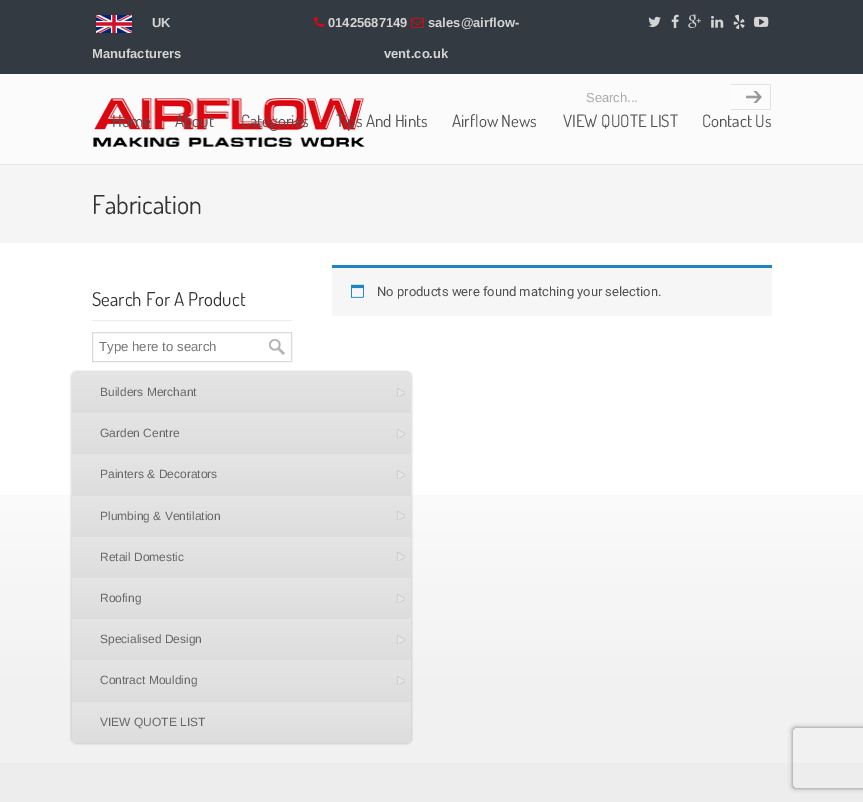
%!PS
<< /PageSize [863 802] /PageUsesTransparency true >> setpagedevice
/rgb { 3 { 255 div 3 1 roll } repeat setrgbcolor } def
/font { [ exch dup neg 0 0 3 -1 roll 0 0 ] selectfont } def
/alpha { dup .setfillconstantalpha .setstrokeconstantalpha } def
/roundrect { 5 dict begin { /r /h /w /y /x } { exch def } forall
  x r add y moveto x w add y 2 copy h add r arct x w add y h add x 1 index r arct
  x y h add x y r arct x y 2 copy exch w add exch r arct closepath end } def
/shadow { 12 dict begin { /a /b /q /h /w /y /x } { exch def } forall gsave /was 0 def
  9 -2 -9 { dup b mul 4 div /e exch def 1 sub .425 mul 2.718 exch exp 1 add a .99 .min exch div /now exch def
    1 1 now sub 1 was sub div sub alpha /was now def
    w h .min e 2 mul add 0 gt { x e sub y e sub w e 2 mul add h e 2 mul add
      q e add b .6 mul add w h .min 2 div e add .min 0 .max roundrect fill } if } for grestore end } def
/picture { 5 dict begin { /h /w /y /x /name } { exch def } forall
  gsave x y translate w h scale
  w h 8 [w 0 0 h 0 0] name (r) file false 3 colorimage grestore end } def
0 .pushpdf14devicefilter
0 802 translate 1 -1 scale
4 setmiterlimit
251 251 251 rgb
0 0 863 802 rectfill
52 58 65 rgb
0 0 863 74 rectfill
(img/1.rgb) 96 15 36 18 picture
(img/2.rgb) 314 16 11 11 picture
(img/3.rgb) 411 17 13 11 picture
(img/4.rgb) 648 16 13 11 picture
(img/5.rgb) 671 14 8 14 picture
(img/6.rgb) 688 14 13 14 picture
(img/7.rgb) 711 15 13 13 picture
(img/8.rgb) 733 14 12 15 picture
(img/9.rgb) 754 16 15 11 picture
(img/10.rgb) 93 98 272 49 picture
(img/11.rgb) 731 84 40 26 picture
[
  [0 164 863 1 233 233 233]
  [0 165 863 78 245 245 245]
  [0 243 863 520 255 255 255]
] { aload pop rgb rectfill } forall
(img/12.rgb) 0 495 863 268 picture
237 237 237 rgb
92 320 200 1 rectfill
221 217 217 rgb
92.5 332.5 199 29 rectstroke
(img/13.rgb) 269 339 16 16 picture
0 0 0 rgb
71 371 341 373 6 1 0.15 shadow
gsave 77 372 moveto 406 372 lineto 409 372 411 374 411 377 curveto 411 413 lineto 72 413 lineto 72 377 lineto 72 374 74 372 77 372 curveto closepath clip newpath
<< /ShadingType 2 /ColorSpace /DeviceRGB /Coords [242 372 242 413] /Extend [true true] /Function << /FunctionType 2 /Domain [0 1] /C0 [0.898 0.898 0.898] /C1 [0.867 0.867 0.867] /N 1 >> >> shfill grestore
(img/14.rgb) 396 388 9 9 picture
gsave 72 413 moveto 411 413 lineto 411 454 lineto 72 454 lineto closepath clip newpath
<< /ShadingType 2 /ColorSpace /DeviceRGB /Coords [242 413 242 454] /Extend [true true] /Function << /FunctionType 2 /Domain [0 1] /C0 [0.898 0.898 0.898] /C1 [0.867 0.867 0.867] /N 1 >> >> shfill grestore
(img/14.rgb) 396 429 9 9 picture
gsave 72 454 moveto 411 454 lineto 411 496 lineto 72 496 lineto closepath clip newpath
<< /ShadingType 2 /ColorSpace /DeviceRGB /Coords [242 454 242 496] /Extend [true true] /Function << /FunctionType 2 /Domain [0 1] /C0 [0.898 0.898 0.898] /C1 [0.867 0.867 0.867] /N 1 >> >> shfill grestore
(img/15.rgb) 396 470 9 9 picture
gsave 72 496 moveto 411 496 lineto 411 537 lineto 72 537 lineto closepath clip newpath
<< /ShadingType 2 /ColorSpace /DeviceRGB /Coords [242 496 242 537] /Extend [true true] /Function << /FunctionType 2 /Domain [0 1] /C0 [0.898 0.898 0.898] /C1 [0.867 0.867 0.867] /N 1 >> >> shfill grestore
(img/16.rgb) 396 511 9 9 picture
gsave 72 537 moveto 411 537 lineto 411 578 lineto 72 578 lineto closepath clip newpath
<< /ShadingType 2 /ColorSpace /DeviceRGB /Coords [242 537 242 578] /Extend [true true] /Function << /FunctionType 2 /Domain [0 1] /C0 [0.898 0.898 0.898] /C1 [0.867 0.867 0.867] /N 1 >> >> shfill grestore
(img/16.rgb) 396 552 9 9 picture
gsave 72 578 moveto 411 578 lineto 411 619 lineto 72 619 lineto closepath clip newpath
<< /ShadingType 2 /ColorSpace /DeviceRGB /Coords [242 578 242 619] /Extend [true true] /Function << /FunctionType 2 /Domain [0 1] /C0 [0.898 0.898 0.898] /C1 [0.867 0.867 0.867] /N 1 >> >> shfill grestore
(img/14.rgb) 396 594 9 9 picture
gsave 72 619 moveto 411 619 lineto 411 660 lineto 72 660 lineto closepath clip newpath
<< /ShadingType 2 /ColorSpace /DeviceRGB /Coords [242 619 242 660] /Extend [true true] /Function << /FunctionType 2 /Domain [0 1] /C0 [0.898 0.898 0.898] /C1 [0.867 0.867 0.867] /N 1 >> >> shfill grestore
(img/14.rgb) 396 635 9 9 picture
gsave 72 660 moveto 411 660 lineto 411 702 lineto 72 702 lineto closepath clip newpath
<< /ShadingType 2 /ColorSpace /DeviceRGB /Coords [242 660 242 702] /Extend [true true] /Function << /FunctionType 2 /Domain [0 1] /C0 [0.898 0.898 0.898] /C1 [0.867 0.867 0.867] /N 1 >> >> shfill grestore
(img/15.rgb) 396 676 9 9 picture
gsave 72 702 moveto 411 702 lineto 411 738 lineto 411 741 409 743 406 743 curveto 77 743 lineto 74 743 72 741 72 738 curveto closepath clip newpath
<< /ShadingType 2 /ColorSpace /DeviceRGB /Coords [242 702 242 743] /Extend [true true] /Function << /FunctionType 2 /Domain [0 1] /C0 [0.898 0.898 0.898] /C1 [0.867 0.867 0.867] /N 1 >> >> shfill grestore
247 246 247 rgb
332 268 440 48 rectfill
30 133 190 rgb
332 265 440 3 rectfill
(img/17.rgb) 351 284 13 14 picture
237 237 237 rgb
0 763 863 39 rectfill
gsave
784 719 moveto 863 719 lineto 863 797 lineto 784 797 lineto closepath 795 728 moveto 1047 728 lineto 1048 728 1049 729 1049 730 curveto 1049 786 lineto 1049 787 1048 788 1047 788 curveto 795 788 lineto 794 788 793 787 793 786 curveto 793 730 lineto 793 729 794 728 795 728 curveto closepath eoclip newpath
128 128 128 rgb
793 728 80 60 2 2.5 1 shadow
grestore
/LiberationSans-Bold 13 font
212 212 212 rgb
[
  [(UK) 152 27]
  [(Manufacturers) 92 58]
  [(01425687149) 328 27]
  [(sales@airflow-) 428 27]
  [(vent.co.uk) 384 58]
] { aload pop moveto show } forall
/LiberationSans-Regular 13 font
170 170 170 rgb
586 102 moveto (Search...) show
/Dosis-Regular 17 font
81 81 81 rgb
[
  [(Home) 112 127]
  [(About) 175 127]
  [(Categories) 241 127]
  [(Tips And Hints) 336 127]
  [(Airflow News) 452 127]
  [(VIEW QUOTE LIST) 563 127]
  [(Contact Us) 702 127]
] { aload pop moveto show } forall
/Dosis-Regular 26 font
51 51 51 rgb
92 214 moveto (Fabrication) show
/Dosis-Regular 19 font
92 306 moveto (Search For A Product) show
/LiberationSans-Regular 13.25 font
117 117 117 rgb
99 351 moveto (Type here to search) show
/LiberationSans-Regular 12 font
102 102 102 rgb
[
  [(Builders Merchant) 100 396]
  [(Garden Centre) 100 437]
  [(Painters & Decorators) 100 478]
  [(Plumbing & Ventilation) 100 520]
  [(Retail Domestic) 100 561]
  [(Roofing) 100 602]
  [(Specialised Design) 100 643]
  [(Contract Moulding) 100 684]
  [(VIEW QUOTE LIST) 100 726]
] { aload pop moveto show } forall
/Roboto-Regular 13 font
81 81 81 rgb
377 296 moveto (No products were found matching your selection.) show
.poppdf14devicefilter showpage
